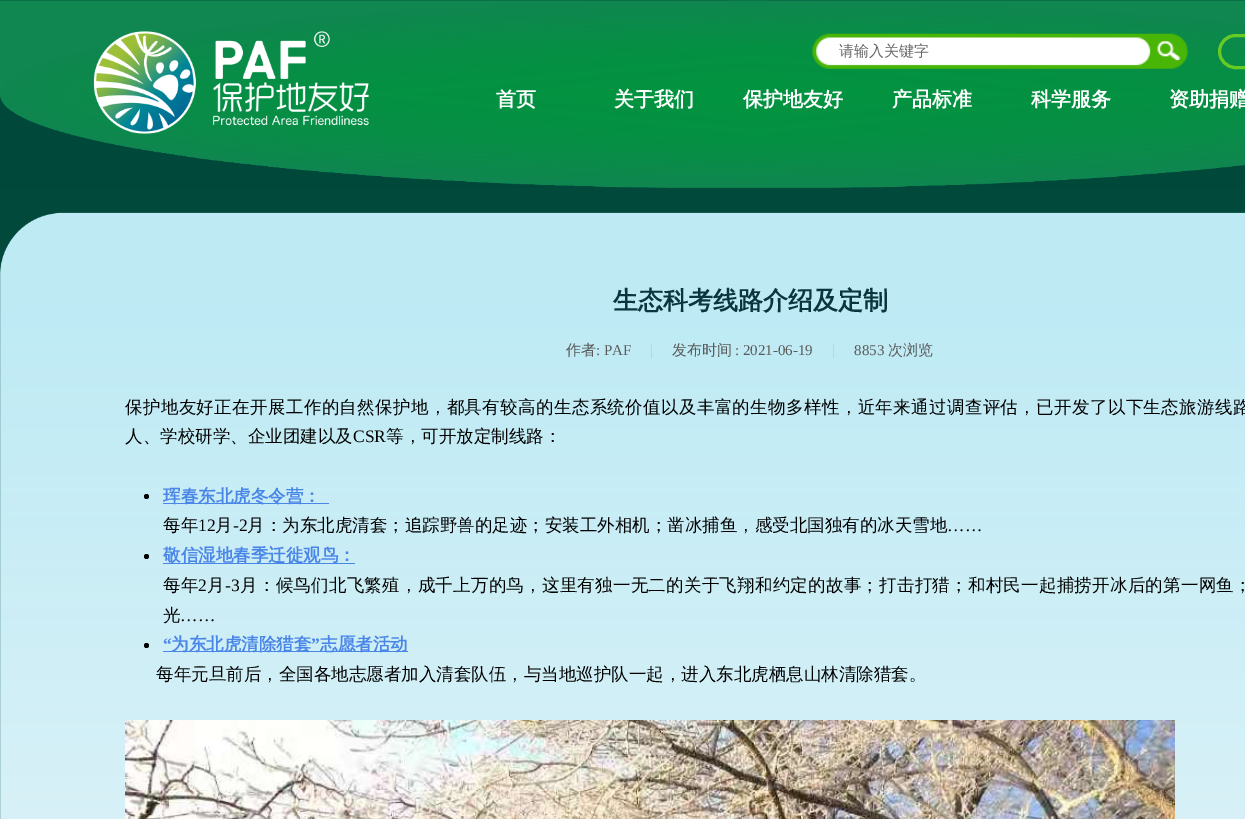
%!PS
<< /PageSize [1245 819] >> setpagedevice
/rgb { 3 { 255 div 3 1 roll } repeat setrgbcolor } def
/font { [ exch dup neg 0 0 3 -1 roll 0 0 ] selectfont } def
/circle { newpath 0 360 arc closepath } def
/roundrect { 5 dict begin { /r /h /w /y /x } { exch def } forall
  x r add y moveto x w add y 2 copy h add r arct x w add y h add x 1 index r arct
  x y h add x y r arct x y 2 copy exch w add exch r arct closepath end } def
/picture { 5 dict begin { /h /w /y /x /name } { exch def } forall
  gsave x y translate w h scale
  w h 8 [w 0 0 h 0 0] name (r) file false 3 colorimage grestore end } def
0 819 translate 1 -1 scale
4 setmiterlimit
226 243 248 rgb
0 0 1245 819 rectfill
(img/1.rgb) 0 0 1245 188 picture
(img/2.rgb) 93 31 276 103 picture
(img/3.rgb) 812 33 376 36 picture
102 204 35 rgb
3 setlinewidth
1219.5 35.5 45 32 16 roundrect stroke
(img/4.rgb) 0 187 1245 632 picture
0 0 0 rgb
146.5 496.5 2.5 circle fill
74 134 232 rgb
163 503 166 1 rectfill
0 0 0 rgb
146.5 556.5 2.5 circle fill
74 134 232 rgb
163 563 192 1 rectfill
0 0 0 rgb
146.5 645.5 2.5 circle fill
74 134 232 rgb
163 651 245 1 rectfill
(img/5.rgb) 125 720 1050 99 picture
/WenQuanYiZenHei-Medium 15 font
102 102 102 rgb
839 56 moveto (请输入关键字) show
/WenQuanYiZenHei-Bold 20 font
255 255 255 rgb
[
  [(首页) 496 106]
  [(关于我们) 614 106]
  [(保护地友好) 743 106]
  [(产品标准) 892 106]
  [(科学服务) 1031 106]
  [(资助捐赠) 1169 106]
] { aload pop moveto show } forall
/WenQuanYiZenHei-Bold 25 font
12 52 61 rgb
613 309 moveto (生态科考线路介绍及定制) show
/WenQuanYiZenHei-Medium 15 font
90 90 90 rgb
566 355 moveto (作者) show
/LiberationSerif-Regular 15 font
596 355 moveto (: PAF) show
182 215 168 rgb
650 355 moveto (|) show
/WenQuanYiZenHei-Medium 15 font
90 90 90 rgb
672 355 moveto (发布时间) show
/LiberationSerif-Regular 15 font
735 355 moveto (: 2021-06-19) show
182 215 168 rgb
832 355 moveto (|) show
90 90 90 rgb
854 355 moveto (8853) show
/WenQuanYiZenHei-Medium 15 font
888 355 moveto (次浏览) show
/WenQuanYiZenHei-Medium 17.5 font
0 0 0 rgb
125 413 moveto 0.37 0 (保护地友好正在开展工作的自然保护地，都具有较高的生态系统价值以及丰富的生物多样性，近年来通过调查评估，已开发了以下生态旅游线路) ashow
125 442 moveto (人、学校研学、企业团建以及) show
/LiberationSerif-Regular 17.5 font
353 442 moveto (CSR) show
/WenQuanYiZenHei-Medium 17.5 font
386 442 moveto (等，可开放定制线路：) show
/WenQuanYiZenHei-Bold 17.5 font
74 134 232 rgb
163 502 moveto (珲春东北虎冬令营：) show
/WenQuanYiZenHei-Medium 17.5 font
0 0 0 rgb
163 531 moveto (每年) show
/LiberationSerif-Regular 17.5 font
198 531 moveto (12) show
/WenQuanYiZenHei-Medium 17.5 font
215 531 moveto (月) show
/LiberationSerif-Regular 17.5 font
233 531 moveto (-2) show
/WenQuanYiZenHei-Medium 17.5 font
247 531 moveto (月：为东北虎清套；追踪野兽的足迹；安装工外相机；凿冰捕鱼，感受北国独有的冰天雪地) show
/LiberationSerif-Regular 17.5 font
947 531 moveto (……) show
/WenQuanYiZenHei-Bold 17.5 font
74 134 232 rgb
163 561 moveto (敬信湿地春季迁徙观鸟：) show
/WenQuanYiZenHei-Medium 17.5 font
0 0 0 rgb
163 591 moveto 0.25 0 (每年) ashow
/LiberationSerif-Regular 17.5 font
198 591 moveto 0.25 0 (2) ashow
/WenQuanYiZenHei-Medium 17.5 font
207 591 moveto 0.25 0 (月) ashow
/LiberationSerif-Regular 17.5 font
225 591 moveto 0.25 0 (-3) ashow
/WenQuanYiZenHei-Medium 17.5 font
240 591 moveto 0.25 0 (月：候鸟们北飞繁殖，成千上万的鸟，这里有独一无二的关于飞翔和约定的故事；打击打猎；和村民一起捕捞开冰后的第一网鱼；) ashow
163 621 moveto (光) show
/LiberationSerif-Regular 17.5 font
180 621 moveto (……) show
/LiberationSerif-Bold 17.5 font
74 134 232 rgb
163 650 moveto (“) show
/WenQuanYiZenHei-Bold 17.5 font
171 650 moveto (为东北虎清除猎套) show
/LiberationSerif-Bold 17.5 font
311 650 moveto (”) show
/WenQuanYiZenHei-Bold 17.5 font
320 650 moveto (志愿者活动) show
/WenQuanYiZenHei-Medium 17.5 font
0 0 0 rgb
156 680 moveto (每年元旦前后，全国各地志愿者加入清套队伍，与当地巡护队一起，进入东北虎栖息山林清除猎套。) show
showpage
